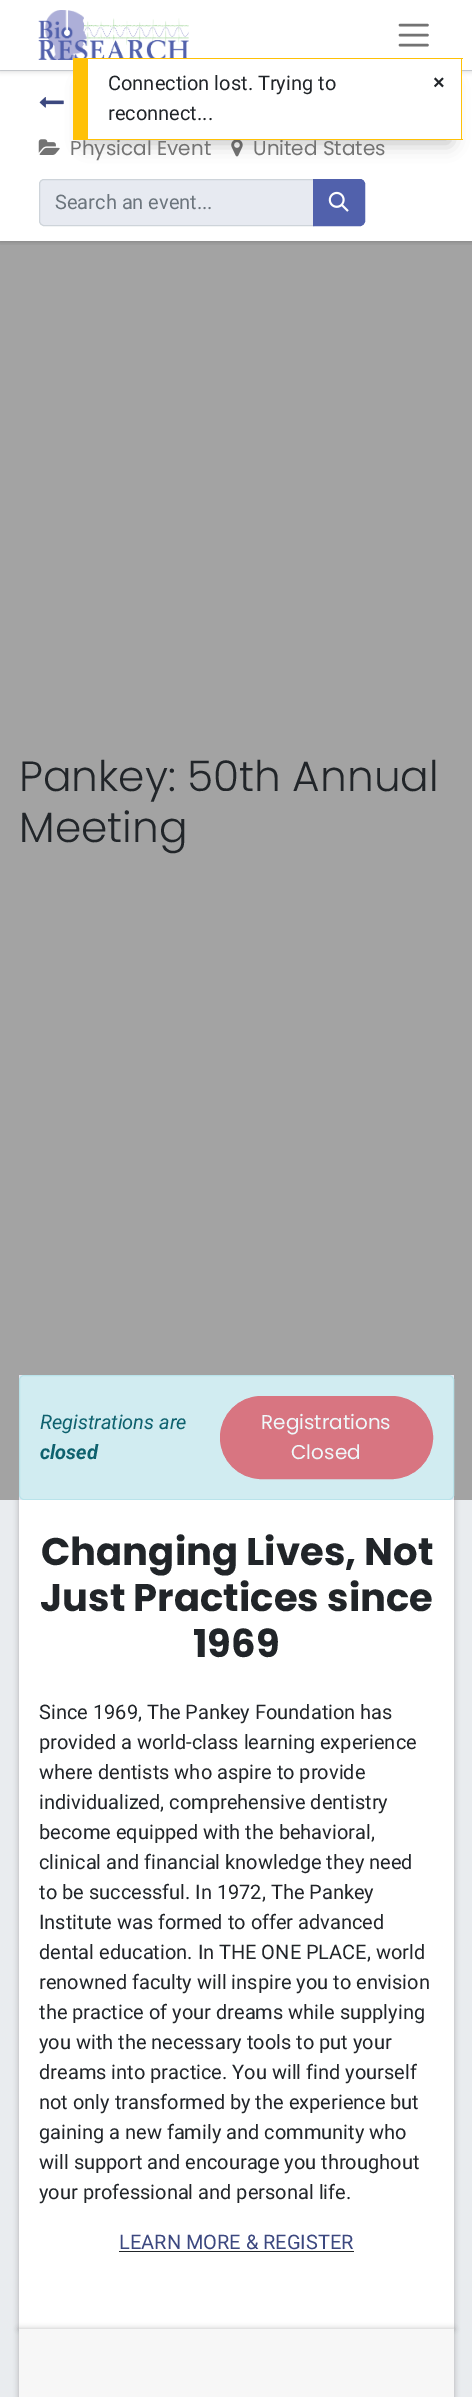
%!PS
<< /PageSize [472 2397] /PageUsesTransparency true >> setpagedevice
/rgb { 3 { 255 div 3 1 roll } repeat setrgbcolor } def
/font { [ exch dup neg 0 0 3 -1 roll 0 0 ] selectfont } def
/alpha { dup .setfillconstantalpha .setstrokeconstantalpha } def
/roundrect { 5 dict begin { /r /h /w /y /x } { exch def } forall
  x r add y moveto x w add y 2 copy h add r arct x w add y h add x 1 index r arct
  x y h add x y r arct x y 2 copy exch w add exch r arct closepath end } def
/shadow { 12 dict begin { /a /b /q /h /w /y /x } { exch def } forall gsave /was 0 def
  9 -2 -9 { dup b mul 4 div /e exch def 1 sub .425 mul 2.718 exch exp 1 add a .99 .min exch div /now exch def
    1 1 now sub 1 was sub div sub alpha /was now def
    w h .min e 2 mul add 0 gt { x e sub y e sub w e 2 mul add h e 2 mul add
      q e add b .6 mul add w h .min 2 div e add .min 0 .max roundrect fill } if } for grestore end } def
/picture { 5 dict begin { /h /w /y /x /name } { exch def } forall
  gsave x y translate w h scale
  w h 8 [w 0 0 h 0 0] name (r) file false 3 colorimage grestore end } def
0 .pushpdf14devicefilter
0 2397 translate 1 -1 scale
4 setmiterlimit
255 255 255 rgb
0 0 472 2397 rectfill
gsave
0 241 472 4 rectclip
0 0 0 rgb
0 70 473 171 0 3 0.25 shadow
grestore
222 226 230 rgb
0 70 472 1 rectfill
0 0 0 rgb
0 0 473 70 0 3 0.25 shadow
255 255 255 rgb
0 0 472 70 rectfill
(img/1.rgb) 38 10 151 50 picture
(img/2.rgb) 39 97 25 11 picture
(img/3.rgb) 38 139 22 16 picture
(img/4.rgb) 231 140 12 17 picture
0 0 0 rgb
85 85 365 58 0 9 0.25 shadow
[
  [88 59 373 80 255 255 255]
  [88 58 375 1 255 193 7]
  [461 58 1 82 255 193 7]
] { aload pop rgb rectfill } forall
115 115 115 rgb
2.5 setlinewidth
1 setlinecap
400 25 moveto 427.5 25 lineto 400 35 moveto 427.5 35 lineto 400 45 moveto 427.5 45 lineto stroke
231 234 241 rgb
44 179.5 moveto 313.5 179.5 lineto 313.5 225.5 lineto 44 225.5 lineto 41.5 225.5 39.5 223.5 39.5 221 curveto 39.5 184 lineto 39.5 181.5 41.5 179.5 44 179.5 curveto closepath gsave fill grestore
206 212 218 rgb
1 setlinewidth
0 setlinecap
stroke
81 97 172 rgb
313.5 179.5 moveto 360 179.5 lineto 362.5 179.5 364.5 181.5 364.5 184 curveto 364.5 221 lineto 364.5 223.5 362.5 225.5 360 225.5 curveto 313.5 225.5 lineto closepath gsave fill grestore
stroke
(img/5.rgb) 328 191 21 21 picture
0.36 alpha
0 0 0 rgb
0 241 472 1259 rectfill
1 alpha
229 231 243 rgb
19 1375 435 125 rectfill
209 236 241 rgb
19.5 1375.5 434 124 4.5 roundrect gsave fill grestore
185 227 234 rgb
stroke
216 117 129 rgb
220.5 1396.5 212 82 41 roundrect gsave fill grestore
stroke
233 236 239 rgb
0 1500 472 897 rectfill
gsave
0 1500 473 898 rectclip
0 0 0 rgb
19 1470 435 859 0 3 0.25 shadow
grestore
255 255 255 rgb
19 1500 435 829 rectfill
33 37 41 rgb
119 2251 235 1 rectfill
0 0 0 rgb
19 2329 435 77 0 3 0.25 shadow
247 247 247 rgb
19 2329 435 68 rectfill
/Roboto-Regular 20 font
33 37 41 rgb
108 90 moveto (Connection lost. Trying to) show
108 120 moveto (reconnect...) show
/LiberationSans-Bold 20 font
433 89 moveto (×) show
/Poppins-Regular 20 font
115 115 115 rgb
70 155 moveto (Physical Event) show
255 193 7 rgb
73 58 15 82 rectfill
115 115 115 rgb
253 155 moveto (United States) show
255 193 7 rgb
88 139 375 1 rectfill
/Roboto-Regular 20 font
108 117 125 rgb
55 209 moveto (Search an event...) show
/Poppins-Light 42.25 font
33 37 41 rgb
19 791 moveto (Pankey: 50th Annual) show
19 842 moveto (Meeting) show
/Roboto-Italic 20 font
14 97 110 rgb
40 1429 moveto (Registrations are) show
/Roboto-BoldItalic 20 font
40 1459 moveto (closed) show
/Poppins-Regular 20 font
239 248 250 rgb
261 1429 moveto (Registrations) show
291 1459 moveto (Closed) show
/Poppins-Bold 38.5 font
33 37 41 rgb
[
  [(Changing Lives, Not) 41 1565]
  [(Just Practices since) 40 1611]
  [(1969) 193 1657]
] { aload pop moveto show } forall
/Roboto-Regular 20 font
[
  [(Since 1969, The Pankey Foundation has) 39 1719]
  [(provided a world-class learning experience) 39 1749]
  [(where dentists who aspire to provide) 39 1779]
  [(individualized, comprehensive dentistry) 39 1809]
  [(become equipped with the behavioral,) 39 1839]
  [(clinical and financial knowledge they need) 39 1869]
  [(to be successful. In 1972, The Pankey) 39 1899]
  [(Institute was formed to offer advanced) 39 1929]
  [(dental education. In THE ONE PLACE, world) 39 1959]
  [(renowned faculty will inspire you to envision) 39 1989]
  [(the practice of your dreams while supplying) 39 2019]
  [(you with the necessary tools to put your) 39 2049]
  [(dreams into practice. You will find yourself) 39 2079]
  [(not only transformed by the experience but) 39 2109]
  [(gaining a new family and community who) 39 2139]
  [(will support and encourage you throughout) 39 2169]
  [(your professional and personal life.) 39 2199]
] { aload pop moveto show } forall
60 72 127 rgb
119 2249 moveto (LEARN MORE & REGISTER) show
.poppdf14devicefilter showpage
